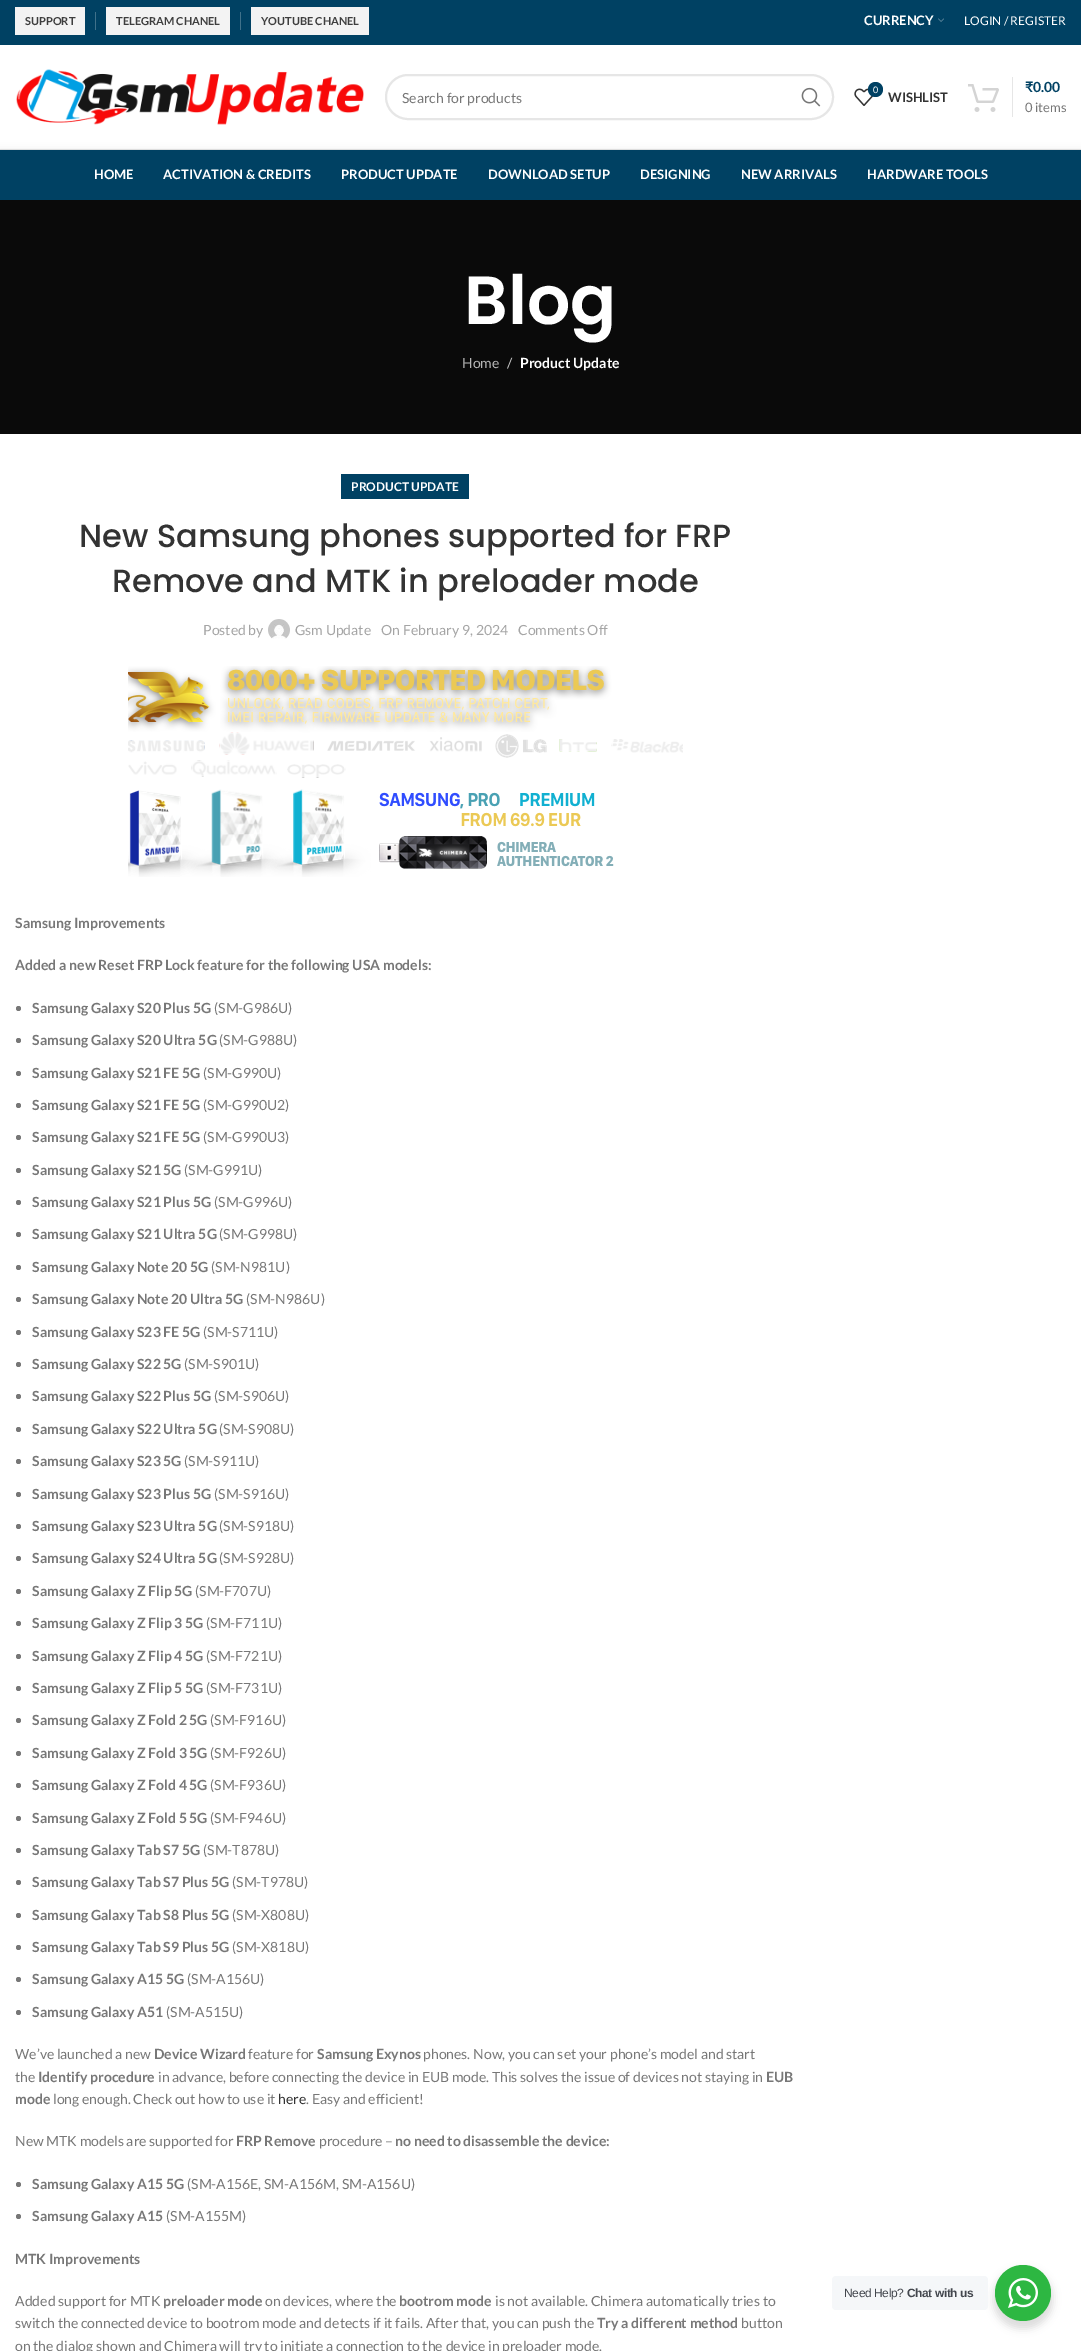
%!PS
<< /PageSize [1081 2351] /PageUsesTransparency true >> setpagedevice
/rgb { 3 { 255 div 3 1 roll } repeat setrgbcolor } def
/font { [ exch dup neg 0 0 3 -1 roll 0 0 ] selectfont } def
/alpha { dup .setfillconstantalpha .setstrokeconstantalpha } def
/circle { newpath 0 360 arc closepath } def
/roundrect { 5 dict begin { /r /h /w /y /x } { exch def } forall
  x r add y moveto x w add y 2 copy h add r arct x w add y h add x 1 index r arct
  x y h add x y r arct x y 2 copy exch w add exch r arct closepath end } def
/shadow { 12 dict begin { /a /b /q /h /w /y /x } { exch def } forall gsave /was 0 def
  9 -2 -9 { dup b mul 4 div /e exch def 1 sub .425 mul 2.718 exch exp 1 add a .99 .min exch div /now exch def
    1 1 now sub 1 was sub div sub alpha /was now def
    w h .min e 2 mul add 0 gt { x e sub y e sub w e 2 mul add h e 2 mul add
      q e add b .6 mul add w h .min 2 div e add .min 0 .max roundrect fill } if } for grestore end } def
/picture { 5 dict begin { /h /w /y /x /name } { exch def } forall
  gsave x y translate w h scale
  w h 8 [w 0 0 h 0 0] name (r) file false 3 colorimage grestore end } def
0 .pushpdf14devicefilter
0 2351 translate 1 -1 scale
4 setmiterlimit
255 255 255 rgb
0 0 1081 2351 rectfill
[
  [0 0 1081 45 0 65 99]
  [15 7 70 28 243 243 243]
  [95 12 1 18 64 113 138]
  [106 7 124 28 243 243 243]
  [240 12 1 18 64 113 138]
  [251 7 118 28 243 243 243]
] { aload pop rgb rectfill } forall
(img/1.rgb) 938 18 6 4 picture
230 230 230 rgb
0 149 1081 1 rectfill
(img/2.rgb) 16 69 348 56 picture
2 setlinewidth
386 75 447 44 22 roundrect stroke
(img/3.rgb) 801 87 20 20 picture
(img/4.rgb) 854 88 20 18 picture
0 65 99 rgb
875.5 89.5 7.5 circle fill
(img/5.rgb) 968 84 31 28 picture
230 230 230 rgb
1012 77 1 40 rectfill
10 10 10 rgb
0 200 1081 234 rectfill
0 0 0 rgb
0 151 1081 50 0 4 0.1 shadow
0 65 99 rgb
0 150 1081 50 rectfill
341 474 128 25 rectfill
(img/6.rgb) 268 619 22 20 picture
(img/7.rgb) 128 666 555 211 picture
119 119 119 rgb
18.5 1008.5 2.5 circle fill
18.5 1040.5 2.5 circle fill
18.5 1073.5 2.5 circle fill
18.5 1105.5 2.5 circle fill
18.5 1137.5 2.5 circle fill
18.5 1170.5 2.5 circle fill
18.5 1202.5 2.5 circle fill
18.5 1234.5 2.5 circle fill
18.5 1267.5 2.5 circle fill
18.5 1299.5 2.5 circle fill
18.5 1332.5 2.5 circle fill
18.5 1364.5 2.5 circle fill
18.5 1396.5 2.5 circle fill
18.5 1429.5 2.5 circle fill
18.5 1461.5 2.5 circle fill
18.5 1494.5 2.5 circle fill
18.5 1526.5 2.5 circle fill
18.5 1558.5 2.5 circle fill
18.5 1591.5 2.5 circle fill
18.5 1623.5 2.5 circle fill
18.5 1656.5 2.5 circle fill
18.5 1688.5 2.5 circle fill
18.5 1720.5 2.5 circle fill
18.5 1753.5 2.5 circle fill
18.5 1785.5 2.5 circle fill
18.5 1818.5 2.5 circle fill
18.5 1850.5 2.5 circle fill
18.5 1882.5 2.5 circle fill
18.5 1915.5 2.5 circle fill
18.5 1947.5 2.5 circle fill
18.5 1979.5 2.5 circle fill
18.5 2012.5 2.5 circle fill
18.5 2184.5 2.5 circle fill
18.5 2216.5 2.5 circle fill
0 0 0 rgb
993 2269 60 60 30 4 0.14 shadow
245 247 249 rgb
832 2276 156 34 4 roundrect fill
45 183 66 rgb
1023 2293 28 circle fill
(img/8.rgb) 1008 2278 30 30 picture
/Lato-Bold 11 font
62 62 62 rgb
[
  [(SUPPORT) 25 25]
  [(TELEGRAM CHANEL) 116 25]
  [(YOUTUBE CHANEL) 261 25]
] { aload pop moveto show } forall
/Lato-Bold 13 font
255 255 255 rgb
864 25 moveto (CURRENCY) show
/Lato-Regular 12 font
964 25 moveto (LOGIN / REGISTER) show
/Lato-Regular 14 font
119 119 119 rgb
402 103 moveto (Search for products) show
/Lato-Regular 9 font
255 255 255 rgb
873 93 moveto (0) show
/Lato-Bold 13 font
51 51 51 rgb
888 102 moveto (WISHLIST) show
/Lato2-Bold 14 font
0 65 99 rgb
1025 92 moveto (₹) show
/Lato-Bold 14 font
1033 92 moveto (0.00) show
/Lato-Regular 13 font
119 119 119 rgb
1025 112 moveto (0 items) show
/Lato-Bold 13 font
255 255 255 rgb
[
  [(HOME) 94 179]
  [(ACTIVATION & CREDITS) 163 179]
  [(PRODUCT UPDATE) 341 179]
  [(DOWNLOAD SETUP) 488 179]
  [(DESIGNING) 640 179]
  [(NEW ARRIVALS) 741 179]
  [(HARDWARE TOOLS) 867 179]
] { aload pop moveto show } forall
/Poppins-SemiBold 68 font
464 324 moveto (Blog) show
/Lato-Regular 14 font
182 182 182 rgb
462 368 moveto (Home) show
206 206 206 rgb
507 368 moveto (/) show
/Lato-Bold 14 font
255 255 255 rgb
520 368 moveto (Product Update) show
/Lato-Bold 12 font
351 491 moveto (PRODUCT UPDATE) show
/Poppins-Medium 32 font
51 51 51 rgb
79 547 moveto (New Samsung phones supported for FRP) show
112 592 moveto (Remove and MTK in preloader mode) show
/Lato-Regular 14 font
165 165 165 rgb
[
  [(Posted by) 203 635]
  [(Gsm Update) 295 635]
  [(On February 9, 2024) 381 635]
  [(Comments Off) 518 635]
] { aload pop moveto show } forall
/Lato-Bold 14 font
119 119 119 rgb
[
  [(Samsung Improvements) 15 928]
  [(Added a new Reset FRP Lock feature for the following USA models:) 15 970]
  [(Samsung Galaxy S20 Plus 5G) 32 1013]
] { aload pop moveto show } forall
/Lato-Regular 14 font
214 1013 moveto (\(SM-G986U\)) show
/Lato-Bold 14 font
32 1045 moveto (Samsung Galaxy S20 Ultra 5G) show
/Lato-Regular 14 font
219 1045 moveto (\(SM-G988U\)) show
/Lato-Bold 14 font
32 1078 moveto (Samsung Galaxy S21 FE 5G) show
/Lato-Regular 14 font
203 1078 moveto (\(SM-G990U\)) show
/Lato-Bold 14 font
32 1110 moveto (Samsung Galaxy S21 FE 5G) show
/Lato-Regular 14 font
203 1110 moveto (\(SM-G990U2\)) show
/Lato-Bold 14 font
32 1142 moveto (Samsung Galaxy S21 FE 5G) show
/Lato-Regular 14 font
203 1142 moveto (\(SM-G990U3\)) show
/Lato-Bold 14 font
32 1175 moveto (Samsung Galaxy S21 5G) show
/Lato-Regular 14 font
184 1175 moveto (\(SM-G991U\)) show
/Lato-Bold 14 font
32 1207 moveto (Samsung Galaxy S21 Plus 5G) show
/Lato-Regular 14 font
214 1207 moveto (\(SM-G996U\)) show
/Lato-Bold 14 font
32 1239 moveto (Samsung Galaxy S21 Ultra 5G) show
/Lato-Regular 14 font
219 1239 moveto (\(SM-G998U\)) show
/Lato-Bold 14 font
32 1272 moveto (Samsung Galaxy Note 20 5G) show
/Lato-Regular 14 font
211 1272 moveto (\(SM-N981U\)) show
/Lato-Bold 14 font
32 1304 moveto (Samsung Galaxy Note 20 Ultra 5G) show
/Lato-Regular 14 font
246 1304 moveto (\(SM-N986U\)) show
/Lato-Bold 14 font
32 1337 moveto (Samsung Galaxy S23 FE 5G) show
/Lato-Regular 14 font
203 1337 moveto (\(SM-S711U\)) show
/Lato-Bold 14 font
32 1369 moveto (Samsung Galaxy S22 5G) show
/Lato-Regular 14 font
184 1369 moveto (\(SM-S901U\)) show
/Lato-Bold 14 font
32 1401 moveto (Samsung Galaxy S22 Plus 5G) show
/Lato-Regular 14 font
214 1401 moveto (\(SM-S906U\)) show
/Lato-Bold 14 font
32 1434 moveto (Samsung Galaxy S22 Ultra 5G) show
/Lato-Regular 14 font
219 1434 moveto (\(SM-S908U\)) show
/Lato-Bold 14 font
32 1466 moveto (Samsung Galaxy S23 5G) show
/Lato-Regular 14 font
184 1466 moveto (\(SM-S911U\)) show
/Lato-Bold 14 font
32 1499 moveto (Samsung Galaxy S23 Plus 5G) show
/Lato-Regular 14 font
214 1499 moveto (\(SM-S916U\)) show
/Lato-Bold 14 font
32 1531 moveto (Samsung Galaxy S23 Ultra 5G) show
/Lato-Regular 14 font
219 1531 moveto (\(SM-S918U\)) show
/Lato-Bold 14 font
32 1563 moveto (Samsung Galaxy S24 Ultra 5G) show
/Lato-Regular 14 font
219 1563 moveto (\(SM-S928U\)) show
/Lato-Bold 14 font
32 1596 moveto (Samsung Galaxy Z Flip 5G) show
/Lato-Regular 14 font
195 1596 moveto (\(SM-F707U\)) show
/Lato-Bold 14 font
32 1628 moveto (Samsung Galaxy Z Flip 3 5G) show
/Lato-Regular 14 font
206 1628 moveto (\(SM-F711U\)) show
/Lato-Bold 14 font
32 1661 moveto (Samsung Galaxy Z Flip 4 5G) show
/Lato-Regular 14 font
206 1661 moveto (\(SM-F721U\)) show
/Lato-Bold 14 font
32 1693 moveto (Samsung Galaxy Z Flip 5 5G) show
/Lato-Regular 14 font
206 1693 moveto (\(SM-F731U\)) show
/Lato-Bold 14 font
32 1725 moveto (Samsung Galaxy Z Fold 2 5G) show
/Lato-Regular 14 font
210 1725 moveto (\(SM-F916U\)) show
/Lato-Bold 14 font
32 1758 moveto (Samsung Galaxy Z Fold 3 5G) show
/Lato-Regular 14 font
210 1758 moveto (\(SM-F926U\)) show
/Lato-Bold 14 font
32 1790 moveto (Samsung Galaxy Z Fold 4 5G) show
/Lato-Regular 14 font
210 1790 moveto (\(SM-F936U\)) show
/Lato-Bold 14 font
32 1823 moveto (Samsung Galaxy Z Fold 5 5G) show
/Lato-Regular 14 font
210 1823 moveto (\(SM-F946U\)) show
/Lato-Bold 14 font
32 1855 moveto (Samsung Galaxy Tab S7 5G) show
/Lato-Regular 14 font
203 1855 moveto (\(SM-T878U\)) show
/Lato-Bold 14 font
32 1887 moveto (Samsung Galaxy Tab S7 Plus 5G) show
/Lato-Regular 14 font
232 1887 moveto (\(SM-T978U\)) show
/Lato-Bold 14 font
32 1920 moveto (Samsung Galaxy Tab S8 Plus 5G) show
/Lato-Regular 14 font
232 1920 moveto (\(SM-X808U\)) show
/Lato-Bold 14 font
32 1952 moveto (Samsung Galaxy Tab S9 Plus 5G) show
/Lato-Regular 14 font
232 1952 moveto (\(SM-X818U\)) show
/Lato-Bold 14 font
32 1984 moveto (Samsung Galaxy A15 5G) show
/Lato-Regular 14 font
187 1984 moveto (\(SM-A156U\)) show
/Lato-Bold 14 font
32 2017 moveto (Samsung Galaxy A51) show
/Lato-Regular 14 font
166 2017 moveto (\(SM-A515U\)) show
15 2059 moveto (We’ve launched a new) show
/Lato-Bold 14 font
154 2059 moveto (Device Wizard) show
/Lato-Regular 14 font
248 2059 moveto (feature for) show
/Lato-Bold 14 font
317 2059 moveto (Samsung Exynos) show
/Lato-Regular 14 font
423 2059 moveto (phones. Now, you can set your phone’s model and start) show
15 2082 moveto (the) show
/Lato-Bold 14 font
38 2082 moveto (Identify procedure) show
/Lato-Regular 14 font
158 2082 moveto (in advance, before connecting the device in EUB mode. This solves the issue of devices not staying in) show
/Lato-Bold 14 font
766 2082 moveto (EUB) show
15 2104 moveto (mode) show
/Lato-Regular 14 font
53 2104 moveto (long enough. Check out how to use it) show
51 51 51 rgb
278 2104 moveto (here) show
119 119 119 rgb
306 2104 moveto (. Easy and efficient!) show
15 2146 moveto (New MTK models are supported for) show
/Lato-Bold 14 font
236 2146 moveto (FRP Remove) show
/Lato-Regular 14 font
319 2146 moveto (procedure –) show
/Lato-Bold 14 font
395 2146 moveto (no need to disassemble the device:) show
32 2189 moveto (Samsung Galaxy A15 5G) show
/Lato-Regular 14 font
187 2189 moveto (\(SM-A156E, SM-A156M, SM-A156U\)) show
/Lato-Bold 14 font
32 2221 moveto (Samsung Galaxy A15) show
/Lato-Regular 14 font
166 2221 moveto (\(SM-A155M\)) show
/Lato-Bold 14 font
15 2264 moveto (MTK Improvements) show
/Lato-Regular 14 font
15 2306 moveto (Added support for MTK) show
/Lato-Bold 14 font
163 2306 moveto (preloader mode) show
/Lato-Regular 14 font
265 2306 moveto (on devices, where the) show
/Lato-Bold 14 font
399 2306 moveto (bootrom mode) show
/Lato-Regular 14 font
495 2306 moveto (is not available. Chimera automatically tries to) show
15 2328 moveto (switch the connected device to bootrom mode and detects if it fails. After that, you can push the) show
/Lato-Bold 14 font
597 2328 moveto (Try a different method) show
/Lato-Regular 14 font
741 2328 moveto (button) show
15 2351 moveto (on the dialog shown and Chimera will try to initiate a connection to the device in preloader mode.) show
/LiberationSans-Regular 12 font
67 71 78 rgb
844 2297 moveto -0.4 0 (Need Help?) ashow
/LiberationSans-Bold 12 font
907 2297 moveto -0.4 0 (Chat with us) ashow
.poppdf14devicefilter showpage
